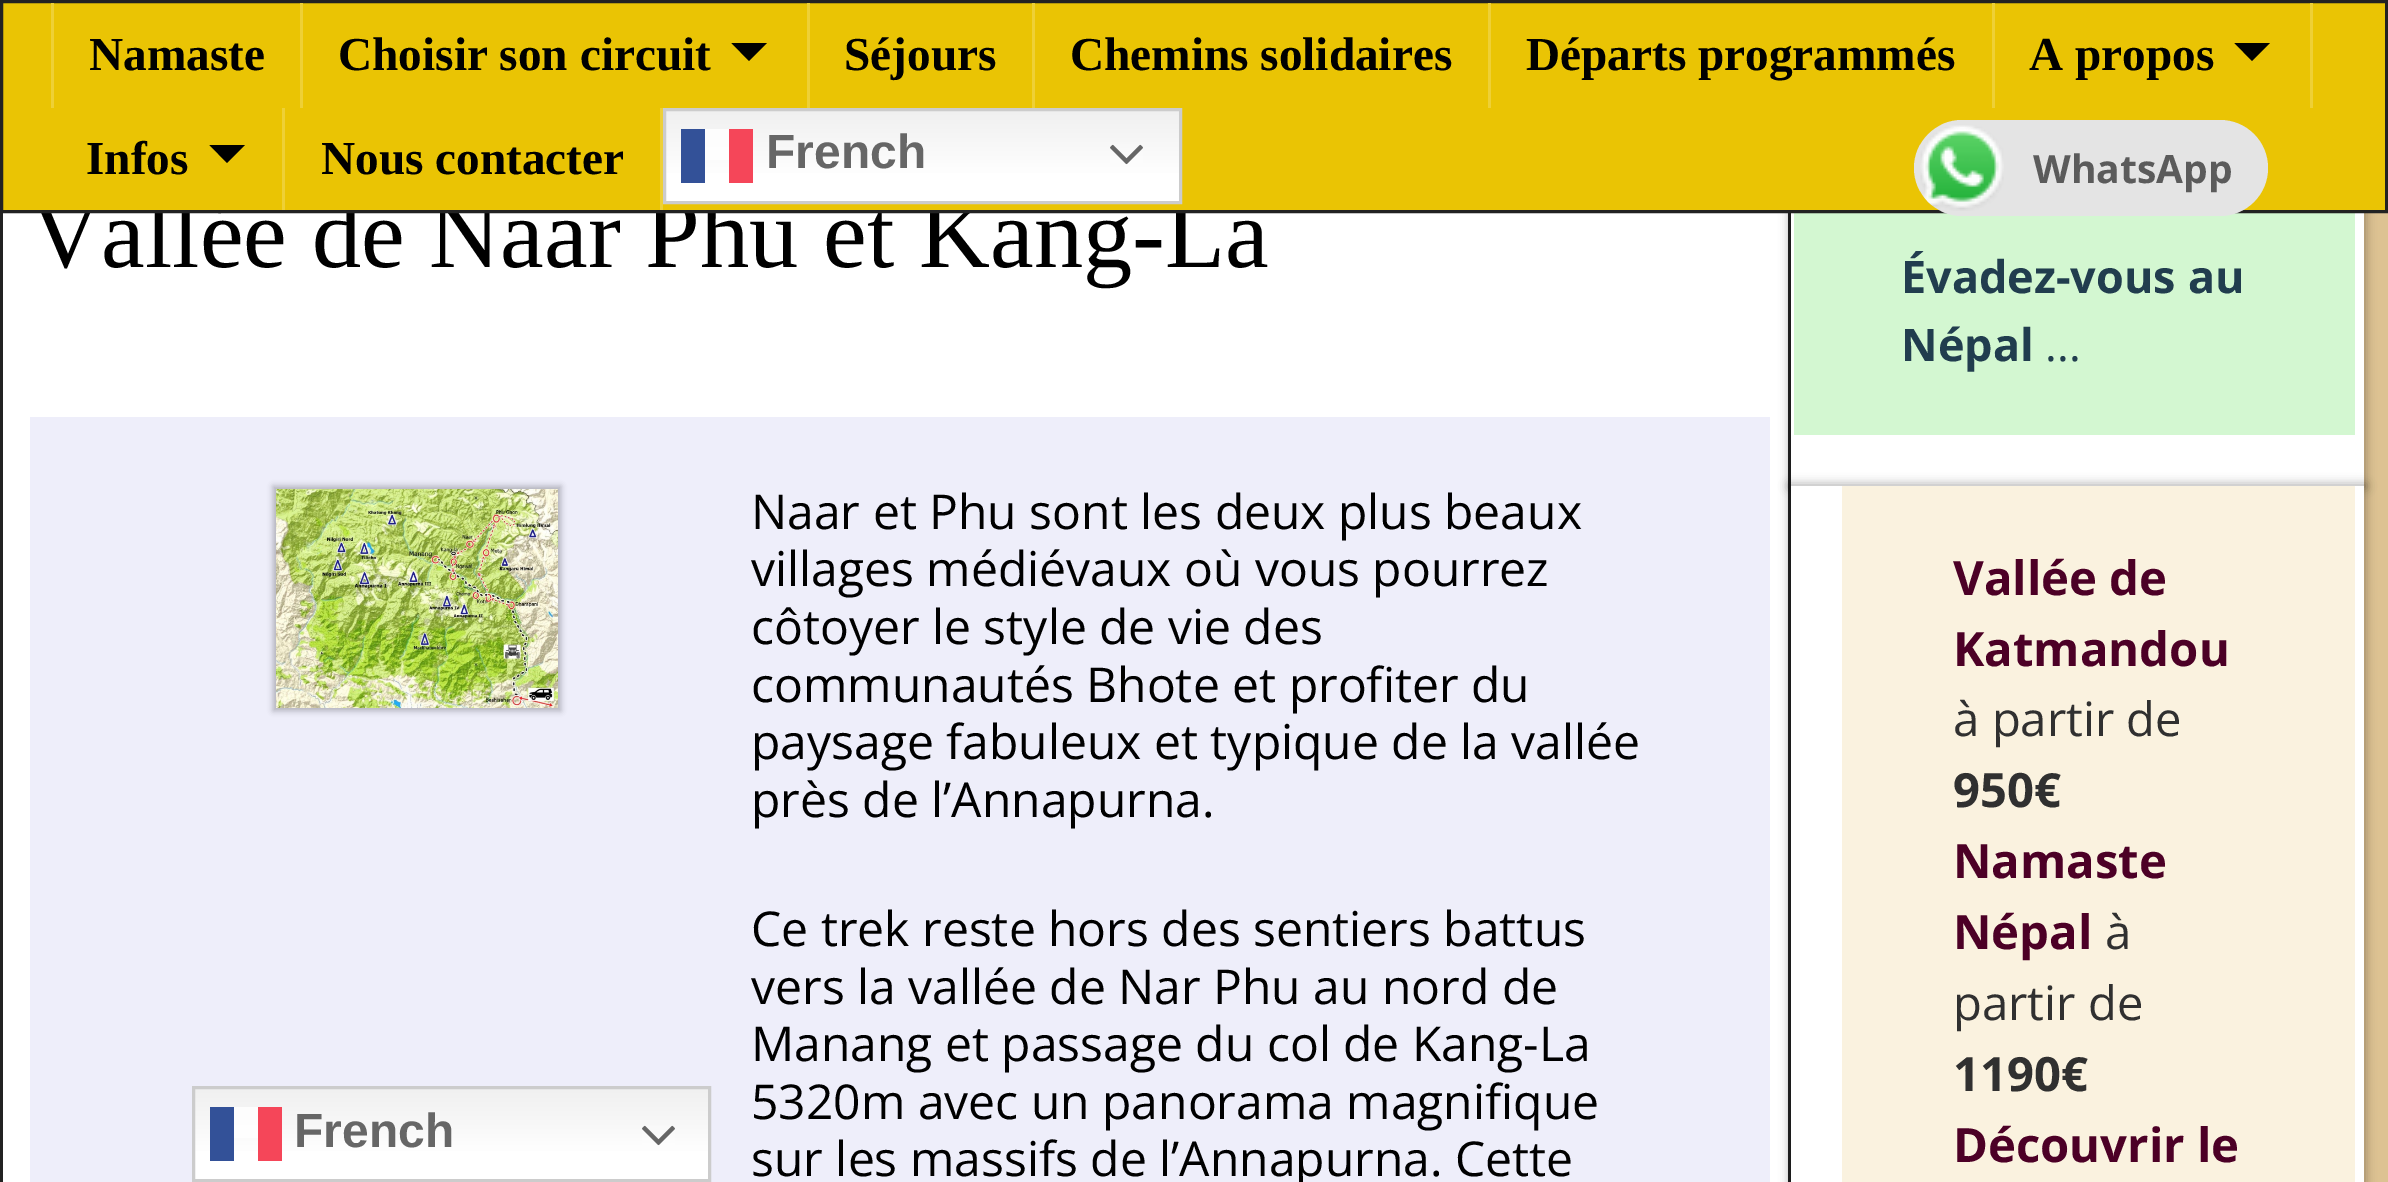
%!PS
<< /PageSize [2388 1182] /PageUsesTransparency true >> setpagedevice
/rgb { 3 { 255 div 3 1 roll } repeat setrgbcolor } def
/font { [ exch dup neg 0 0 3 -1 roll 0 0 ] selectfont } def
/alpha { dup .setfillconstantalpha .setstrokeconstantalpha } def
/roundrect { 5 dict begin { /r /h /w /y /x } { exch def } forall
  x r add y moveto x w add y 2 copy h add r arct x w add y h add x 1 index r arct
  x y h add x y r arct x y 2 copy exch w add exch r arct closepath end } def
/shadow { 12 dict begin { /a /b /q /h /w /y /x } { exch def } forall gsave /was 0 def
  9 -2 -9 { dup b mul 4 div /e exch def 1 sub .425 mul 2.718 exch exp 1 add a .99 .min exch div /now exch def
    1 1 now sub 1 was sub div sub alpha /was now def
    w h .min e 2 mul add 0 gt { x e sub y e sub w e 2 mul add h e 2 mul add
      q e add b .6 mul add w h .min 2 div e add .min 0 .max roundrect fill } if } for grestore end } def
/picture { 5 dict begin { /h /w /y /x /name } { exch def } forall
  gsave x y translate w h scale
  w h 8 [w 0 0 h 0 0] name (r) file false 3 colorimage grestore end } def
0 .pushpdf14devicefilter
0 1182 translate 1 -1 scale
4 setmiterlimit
255 255 255 rgb
0 0 2388 1182 rectfill
34 34 34 rgb
1791 138 moveto 1791 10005 lineto 1788 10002 lineto 1788 156 lineto closepath fill
0 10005 moveto 0 138 lineto 3 156 lineto 3 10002 lineto closepath fill
238 238 250 rgb
30 417 1740 765 rectfill
0 0 0 rgb
273 486 288 225 0 3 0.25 shadow
(img/2.rgb) 276 489 282 219 picture
221 194 146 rgb
2364 213 24 969 rectfill
0 0 0 rgb
1788 48 579 441 0 4.5 0.25 shadow
255 255 255 rgb
1791 213 573 273 rectfill
211 247 209 rgb
1794 213 561 222 rectfill
0 0 0 rgb
1788 483 579 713 0 4.5 0.25 shadow
255 255 255 rgb
1791 486 573 696 rectfill
250 242 223 rgb
1842 486 513 696 rectfill
gsave 195 1089 moveto 708 1089 lineto 708 1179 lineto 195 1179 lineto closepath clip newpath
<< /ShadingType 2 /ColorSpace /DeviceRGB /Coords [452 1086 452 1182] /Extend [true true] /Function << /FunctionType 3 /Domain [0 1] /Functions [<< /FunctionType 2 /Domain [0 1] /C0 [0.937 0.937 0.937] /C1 [1 1 1] /N 1 >> << /FunctionType 2 /Domain [0 1] /C0 [1 1 1] /C1 [1 1 1] /N 1 >>] /Bounds [0.7] /Encode [0 1 0 1] >> >> shfill grestore
204 204 204 rgb
3 setlinewidth
193.5 1087.5 516 93 rectstroke
[
  [210 1107 24 54 51 81 152]
] { aload pop rgb rectfill } forall
0.8 alpha
[
  [234 1107 24 31 255 255 255]
] { aload pop rgb rectfill } forall
1 alpha
[
  [258 1107 24 54 245 70 89]
] { aload pop rgb rectfill } forall
(img/4.rgb) 642 1125 33 21 picture
/LiberationSerif-Regular 98.5 font
0 0 0 rgb
30 267 moveto (Vallée de Naar Phu et Kang-La) show
234 196 4 rgb
1.5 1.5 moveto 2386.5 1.5 lineto 2386.5 211.5 lineto 1.5 211.5 lineto closepath gsave fill grestore
34 34 34 rgb
stroke
gsave 666 111 moveto 1179 111 lineto 1179 201 lineto 666 201 lineto closepath clip newpath
<< /ShadingType 2 /ColorSpace /DeviceRGB /Coords [923 108 923 204] /Extend [true true] /Function << /FunctionType 3 /Domain [0 1] /Functions [<< /FunctionType 2 /Domain [0 1] /C0 [0.937 0.937 0.937] /C1 [1 1 1] /N 1 >> << /FunctionType 2 /Domain [0 1] /C0 [1 1 1] /C1 [1 1 1] /N 1 >>] /Bounds [0.7] /Encode [0 1 0 1] >> >> shfill grestore
204 204 204 rgb
664.5 109.5 516 93 rectstroke
(img/1.rgb) 1110 144 33 21 picture
[
  [729 129 24 54 245 70 89]
  [681 129 24 54 51 81 152]
] { aload pop rgb rectfill } forall
0.8 alpha
[
  [705 129 24 31 255 255 255]
] { aload pop rgb rectfill } forall
/LiberationSans-Bold 48 font
1 alpha
102 102 102 rgb
766 168 moveto (French) show
/LiberationSerif-Bold 47.25 font
0 0 0 rgb
321 174 moveto (Nous contacter) show
238 208 54 rgb
660 108 3 102 rectfill
0 0 0 rgb
209.5 145 moveto 245 145 lineto 227 163 lineto closepath fill
86 174 moveto (Infos) show
238 208 54 rgb
282 108 3 102 rectfill
0 0 0 rgb
2234.5 43 moveto 2270 43 lineto 2252 61 lineto closepath fill
2029 70 moveto (A propos) show
238 208 54 rgb
2310 3 3 105 rectfill
0 0 0 rgb
1526 70 moveto (Départs programmés) show
238 208 54 rgb
1992 3 3 105 rectfill
0 0 0 rgb
1070 70 moveto (Chemins solidaires) show
238 208 54 rgb
1488 3 3 105 rectfill
0 0 0 rgb
844 70 moveto (Séjours) show
238 208 54 rgb
1032 3 3 105 rectfill
0 0 0 rgb
731.5 43 moveto 767 43 lineto 749 61 lineto closepath fill
338 70 moveto (Choisir son circuit) show
238 208 54 rgb
807 3 3 105 rectfill
0 0 0 rgb
89 70 moveto (Namaste) show
238 208 54 rgb
300 3 3 105 rectfill
51 3 3 105 rectfill
/OpenSans-Regular 48 font
0 0 0 rgb
[
  [(Naar et Phu sont les deux plus beaux) 751 529]
  [(villages médiévaux où vous pourrez) 751 586]
  [(côtoyer le style de vie des) 751 644]
  [(communautés Bhote et profiter du) 751 702]
  [(paysage fabuleux et typique de la vallée) 751 759]
  [(près de l’Annapurna.) 751 817]
  [(Ce trek reste hors des sentiers battus) 751 946]
  [(vers la vallée de Nar Phu au nord de) 751 1004]
  [(Manang et passage du col de Kang-La) 751 1061]
  [(5320m avec un panorama magnifique) 751 1119]
  [(sur les massifs de l’Annapurna. Cette) 751 1176]
] { aload pop moveto show } forall
/OpenSans-Bold 45 font
33 61 78 rgb
1901 293 moveto (Évadez-vous au) show
1901 361 moveto (Népal) show
/OpenSans-Regular 45 font
2045 361 moveto (...) show
/OpenSans-Bold 47.25 font
76 0 38 rgb
1953 595 moveto (Vallée de) show
1953 666 moveto (Katmandou) show
/OpenSans-Regular 47.25 font
48 48 48 rgb
1953 736 moveto (à partir de) show
/OpenSans-Bold 47.25 font
1953 807 moveto (950€) show
76 0 38 rgb
1953 878 moveto (Namaste) show
1953 949 moveto (Népal) show
/OpenSans-Regular 47.25 font
48 48 48 rgb
2105 949 moveto (à) show
1953 1020 moveto (partir de) show
/OpenSans-Bold 47.25 font
1953 1091 moveto (1190€) show
76 0 38 rgb
1953 1162 moveto (Découvrir le) show
228 228 228 rgb
1914 120 354 96 48 roundrect fill
(img/3.rgb) 1920 125 84 86 picture
/OpenSans-Bold 39 font
91 91 91 rgb
2033 183 moveto (WhatsApp) show
/LiberationSans-Bold 48 font
102 102 102 rgb
294 1147 moveto (French) show
.poppdf14devicefilter showpage
